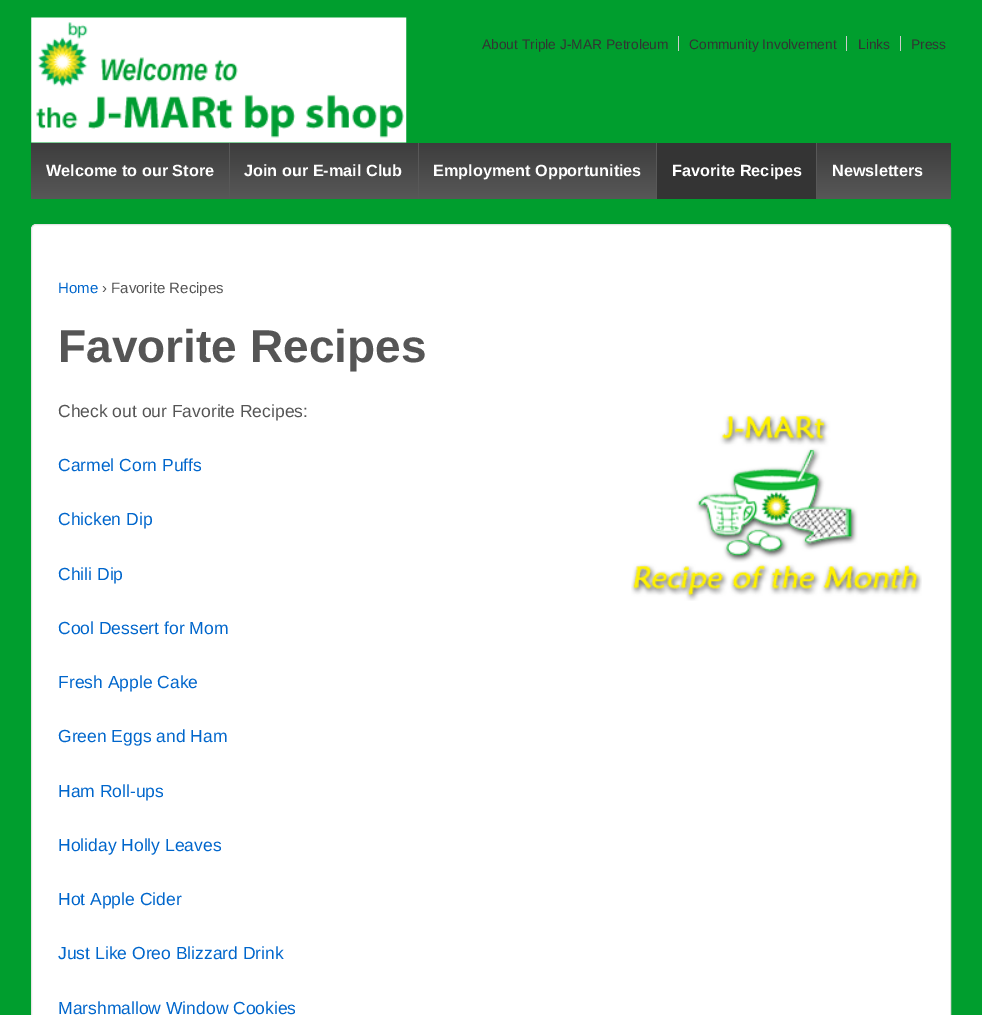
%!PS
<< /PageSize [982 1015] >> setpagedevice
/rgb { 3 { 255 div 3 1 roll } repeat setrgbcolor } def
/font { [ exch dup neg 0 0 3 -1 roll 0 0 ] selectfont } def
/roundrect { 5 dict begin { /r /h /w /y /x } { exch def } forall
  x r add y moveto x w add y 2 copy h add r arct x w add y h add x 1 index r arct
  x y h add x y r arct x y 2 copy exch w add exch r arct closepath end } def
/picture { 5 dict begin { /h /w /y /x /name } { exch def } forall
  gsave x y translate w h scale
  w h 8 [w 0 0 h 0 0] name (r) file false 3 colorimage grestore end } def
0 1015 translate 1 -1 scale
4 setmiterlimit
0 158 46 rgb
0 0 982 1015 rectfill
(img/1.rgb) 31 17 376 126 picture
[
  [678 36 1 15 204 204 204]
  [846 36 1 15 204 204 204]
  [900 36 1 15 204 204 204]
] { aload pop rgb rectfill } forall
gsave 31 143 moveto 951 143 lineto 951 199 lineto 31 199 lineto closepath clip newpath
<< /ShadingType 2 /ColorSpace /DeviceRGB /Coords [491 199 491 143] /Extend [true true] /Function << /FunctionType 2 /Domain [0 1] /C0 [0.345 0.345 0.345] /C1 [0.239 0.239 0.239] /N 1 >> >> shfill grestore
[
  [229 143 1 56 88 88 88]
  [418 143 1 56 88 88 88]
  [657 143 159 56 52 52 52]
  [656 143 1 56 88 88 88]
  [816 143 1 56 88 88 88]
] { aload pop rgb rectfill } forall
255 255 255 rgb
31.5 224.5 919 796 4.5 roundrect gsave fill grestore
229 229 229 rgb
stroke
(img/2.rgb) 631 414 291 187 picture
/LiberationSans-Regular 13.75 font
51 51 51 rgb
[
  [(About Triple J-MAR Petroleum) 482 49]
  [(Community Involvement) 689 49]
  [(Links) 858 49]
  [(Press) 911 49]
] { aload pop moveto show } forall
/LiberationSans-Bold 16.25 font
255 255 255 rgb
[
  [(Welcome to our Store) 46 176]
  [(Join our E-mail Club) 244 176]
  [(Employment Opportunities) 433 176]
  [(Favorite Recipes) 672 176]
  [(Newsletters) 832 176]
] { aload pop moveto show } forall
/LiberationSans-Regular 15 font
0 102 204 rgb
58 293 moveto (Home) show
85 85 85 rgb
102 293 moveto (› Favorite Recipes) show
/LiberationSans-Bold 46 font
58 362 moveto (Favorite Recipes) show
/LiberationSans-Regular 17.5 font
58 417 moveto (Check out our Favorite Recipes:) show
0 102 204 rgb
[
  [(Carmel Corn Puffs) 58 471]
  [(Chicken Dip) 58 525]
  [(Chili Dip) 58 580]
  [(Cool Dessert for Mom) 58 634]
  [(Fresh Apple Cake) 58 688]
  [(Green Eggs and Ham) 58 742]
  [(Ham Roll-ups) 58 797]
  [(Holiday Holly Leaves) 58 851]
  [(Hot Apple Cider) 58 905]
  [(Just Like Oreo Blizzard Drink) 58 959]
  [(Marshmallow Window Cookies) 58 1014]
] { aload pop moveto show } forall
showpage
